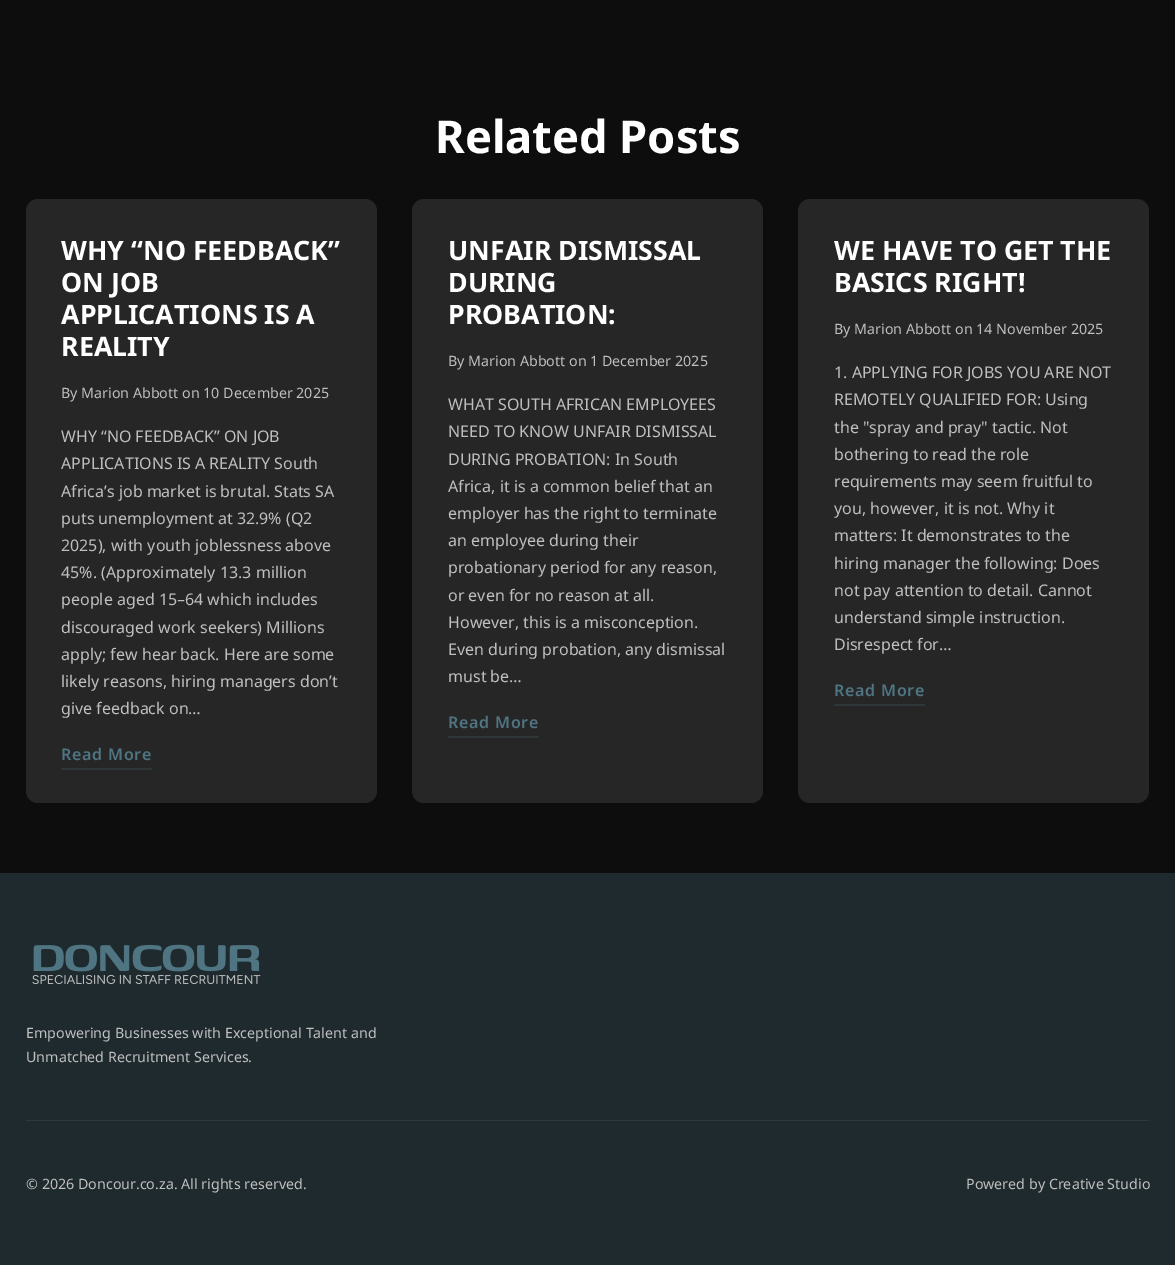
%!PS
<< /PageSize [1175 1265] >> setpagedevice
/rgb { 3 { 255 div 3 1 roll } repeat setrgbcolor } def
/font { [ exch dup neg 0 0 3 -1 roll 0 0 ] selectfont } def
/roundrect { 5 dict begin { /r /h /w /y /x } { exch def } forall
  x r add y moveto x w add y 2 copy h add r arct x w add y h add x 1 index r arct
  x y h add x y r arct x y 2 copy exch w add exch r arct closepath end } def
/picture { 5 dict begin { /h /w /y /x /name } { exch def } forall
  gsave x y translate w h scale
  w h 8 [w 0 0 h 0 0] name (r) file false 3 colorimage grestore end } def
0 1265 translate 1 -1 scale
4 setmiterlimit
13 13 13 rgb
0 0 1175 1265 rectfill
38 38 38 rgb
26 199 351 604 12 roundrect fill
46 54 56 rgb
61 768 91 2 rectfill
38 38 38 rgb
412 199 351 604 12 roundrect fill
46 54 56 rgb
448 736 91 2 rectfill
38 38 38 rgb
798 199 351 604 12 roundrect fill
46 54 56 rgb
834 704 91 2 rectfill
31 42 46 rgb
0 873 1175 392 rectfill
(img/1.rgb) 32 944 229 41 picture
47 57 61 rgb
26 1120 1123 1 rectfill
/NotoSans-Bold 45.25 font
255 255 255 rgb
435 153 moveto (Related Posts) show
/NotoSans-Bold 26.75 font
[
  [(WHY “NO FEEDBACK”) 61 260]
  [(ON JOB) 61 292]
  [(APPLICATIONS IS A) 61 324]
  [(REALITY) 61 356]
] { aload pop moveto show } forall
/NotoSans-Regular 14.25 font
191 191 191 rgb
61 398 moveto (By Marion Abbott on 10 December 2025) show
/NotoSans-Regular 16 font
[
  [(WHY “NO FEEDBACK” ON JOB) 61 442]
  [(APPLICATIONS IS A REALITY South) 61 469]
  [(Africa’s job market is brutal. Stats SA) 61 497]
  [(puts unemployment at 32.9% \(Q2) 61 524]
  [(2025\), with youth joblessness above) 61 551]
  [(45%. \(Approximately 13.3 million) 61 578]
  [(people aged 15–64 which includes) 61 605]
  [(discouraged work seekers\) Millions) 61 633]
  [(apply; few hear back. Here are some) 61 660]
  [(likely reasons, hiring managers don’t) 61 687]
  [(give feedback on…) 61 714]
] { aload pop moveto show } forall
/NotoSans-SemiBold 16 font
79 117 130 rgb
61 760 moveto 0.75 0 (Read More) ashow
/NotoSans-Bold 26.75 font
255 255 255 rgb
[
  [(UNFAIR DISMISSAL) 448 260]
  [(DURING) 448 292]
  [(PROBATION:) 448 324]
] { aload pop moveto show } forall
/NotoSans-Regular 14.25 font
191 191 191 rgb
448 366 moveto (By Marion Abbott on 1 December 2025) show
/NotoSans-Regular 16 font
[
  [(WHAT SOUTH AFRICAN EMPLOYEES) 448 410]
  [(NEED TO KNOW UNFAIR DISMISSAL) 448 437]
  [(DURING PROBATION: In South) 448 465]
  [(Africa, it is a common belief that an) 448 492]
  [(employer has the right to terminate) 448 519]
  [(an employee during their) 448 546]
  [(probationary period for any reason,) 448 573]
  [(or even for no reason at all.) 448 601]
  [(However, this is a misconception.) 448 628]
  [(Even during probation, any dismissal) 448 655]
  [(must be…) 448 682]
] { aload pop moveto show } forall
/NotoSans-SemiBold 16 font
79 117 130 rgb
448 728 moveto 0.75 0 (Read More) ashow
/NotoSans-Bold 26.75 font
255 255 255 rgb
834 260 moveto (WE HAVE TO GET THE) show
834 292 moveto (BASICS RIGHT!) show
/NotoSans-Regular 14.25 font
191 191 191 rgb
834 334 moveto (By Marion Abbott on 14 November 2025) show
/NotoSans-Regular 16 font
[
  [(1. APPLYING FOR JOBS YOU ARE NOT) 834 378]
  [(REMOTELY QUALIFIED FOR: Using) 834 405]
  [(the "spray and pray" tactic. Not) 834 433]
  [(bothering to read the role) 834 460]
  [(requirements may seem fruitful to) 834 487]
  [(you, however, it is not. Why it) 834 514]
  [(matters: It demonstrates to the) 834 541]
  [(hiring manager the following: Does) 834 569]
  [(not pay attention to detail. Cannot) 834 596]
  [(understand simple instruction.) 834 623]
  [(Disrespect for…) 834 650]
] { aload pop moveto show } forall
/NotoSans-SemiBold 16 font
79 117 130 rgb
834 696 moveto 0.75 0 (Read More) ashow
/NotoSans-Regular 14.25 font
191 191 191 rgb
[
  [(Empowering Businesses with Exceptional Talent and) 26 1038]
  [(Unmatched Recruitment Services.) 26 1062]
  [(© 2026 Doncour.co.za. All rights reserved.) 26 1189]
  [(Powered by Creative Studio) 966 1189]
] { aload pop moveto show } forall
showpage
